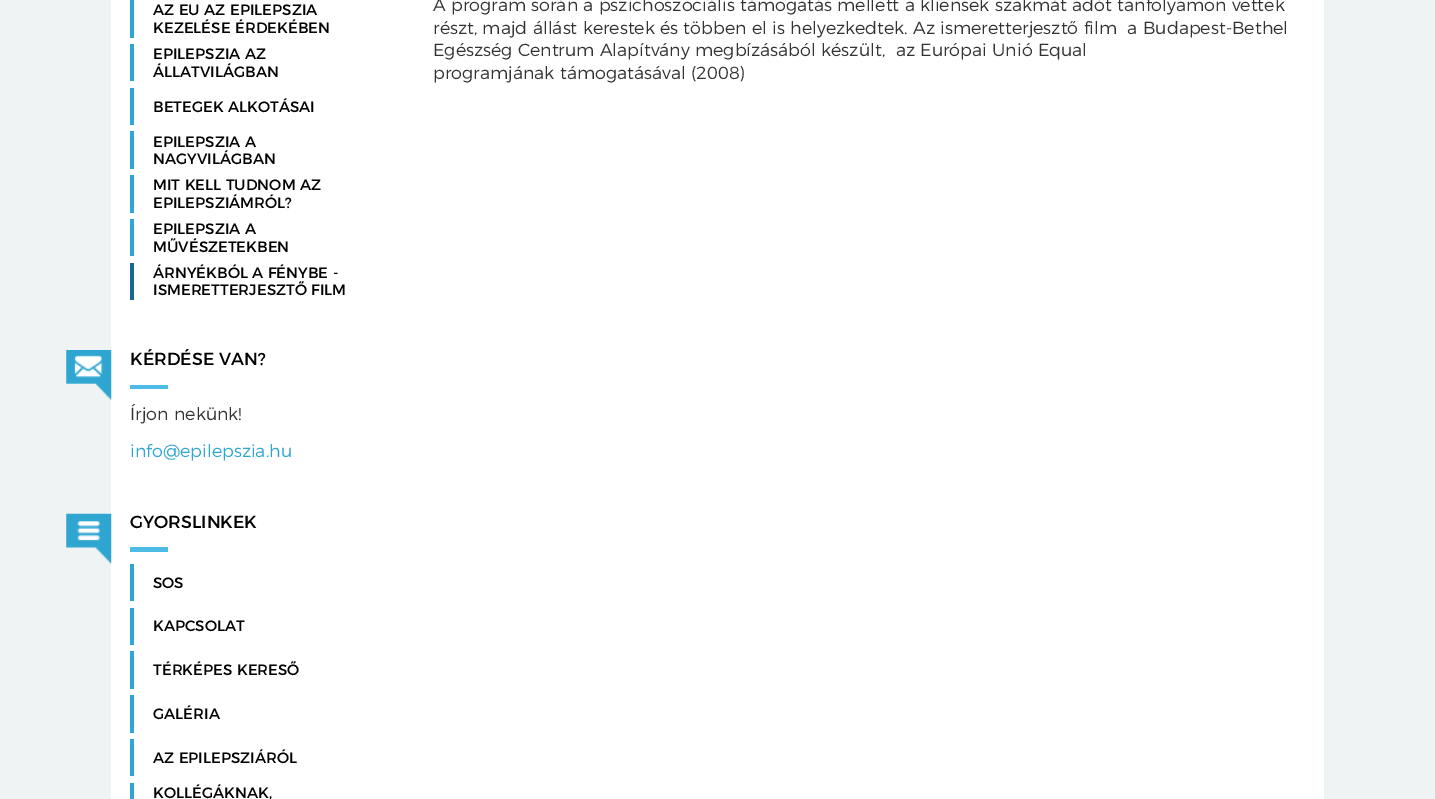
%!PS
<< /PageSize [1435 799] >> setpagedevice
/rgb { 3 { 255 div 3 1 roll } repeat setrgbcolor } def
/font { [ exch dup neg 0 0 3 -1 roll 0 0 ] selectfont } def
/picture { 5 dict begin { /h /w /y /x /name } { exch def } forall
  gsave x y translate w h scale
  w h 8 [w 0 0 h 0 0] name (r) file false 3 colorimage grestore end } def
0 799 translate 1 -1 scale
4 setmiterlimit
240 243 243 rgb
0 0 1435 799 rectfill
[
  [111 0 1213 799 255 255 255]
  [130 0 4 38 47 166 210]
  [130 44 4 37 47 166 210]
  [130 88 4 37 47 166 210]
  [130 131 4 38 47 166 210]
  [130 175 4 38 47 166 210]
  [130 219 4 37 47 166 210]
  [130 263 4 37 23 103 144]
] { aload pop rgb rectfill } forall
(img/1.rgb) 66 350 46 50 picture
76 188 230 rgb
130 385 38 4 rectfill
(img/2.rgb) 66 513 46 51 picture
[
  [130 547 38 5 76 188 230]
  [130 564 4 37 47 166 210]
  [130 608 4 37 47 166 210]
  [130 651 4 38 47 166 210]
  [130 695 4 38 47 166 210]
  [130 739 4 37 47 166 210]
  [130 783 4 16 47 166 210]
] { aload pop rgb rectfill } forall
/Montserrat-Regular 15 font
0 0 0 rgb
[
  [(AZ EU AZ EPILEPSZIA) 153 15]
  [(KEZELÉSE ÉRDEKÉBEN) 153 33]
  [(EPILEPSZIA AZ) 153 59]
  [(ÁLLATVILÁGBAN) 153 77]
  [(BETEGEK ALKOTÁSAI) 153 112]
  [(EPILEPSZIA A) 153 147]
  [(NAGYVILÁGBAN) 153 164]
  [(MIT KELL TUDNOM AZ) 153 190]
  [(EPILEPSZIÁMRÓL?) 153 208]
  [(EPILEPSZIA A) 153 234]
  [(MŰVÉSZETEKBEN) 153 252]
  [(ÁRNYÉKBÓL A FÉNYBE -) 153 278]
  [(ISMERETTERJESZTŐ FILM) 153 295]
] { aload pop moveto show } forall
/Montserrat-Regular 17.5 font
130 365 moveto (KÉRDÉSE VAN?) show
/Montserrat-Light 17.5 font
51 51 51 rgb
130 420 moveto (Írjon nekünk!) show
47 166 210 rgb
130 457 moveto (info@epilepszia.hu) show
/Montserrat-Regular 17.5 font
0 0 0 rgb
130 528 moveto (GYORSLINKEK) show
/Montserrat-Regular 15 font
[
  [(SOS) 153 588]
  [(KAPCSOLAT) 153 631]
  [(TÉRKÉPES KERESŐ) 153 675]
  [(GALÉRIA) 153 719]
  [(AZ EPILEPSZIÁRÓL) 153 763]
  [(KOLLÉGÁKNAK,) 153 798]
] { aload pop moveto show } forall
/Montserrat-Light 17.5 font
51 51 51 rgb
[
  [(A program során a pszichoszociális támogatás mellett a kliensek szakmát adót tanfolyamon vettek) 433 11]
  [(részt, majd állást kerestek és többen el is helyezkedtek. Az ismeretterjesztő film  a Budapest-Bethel) 433 34]
  [(Egészség Centrum Alapítvány megbízásából készült,  az Európai Unió Equal) 433 56]
  [(programjának támogatásával \(2008\)) 433 79]
] { aload pop moveto show } forall
showpage
